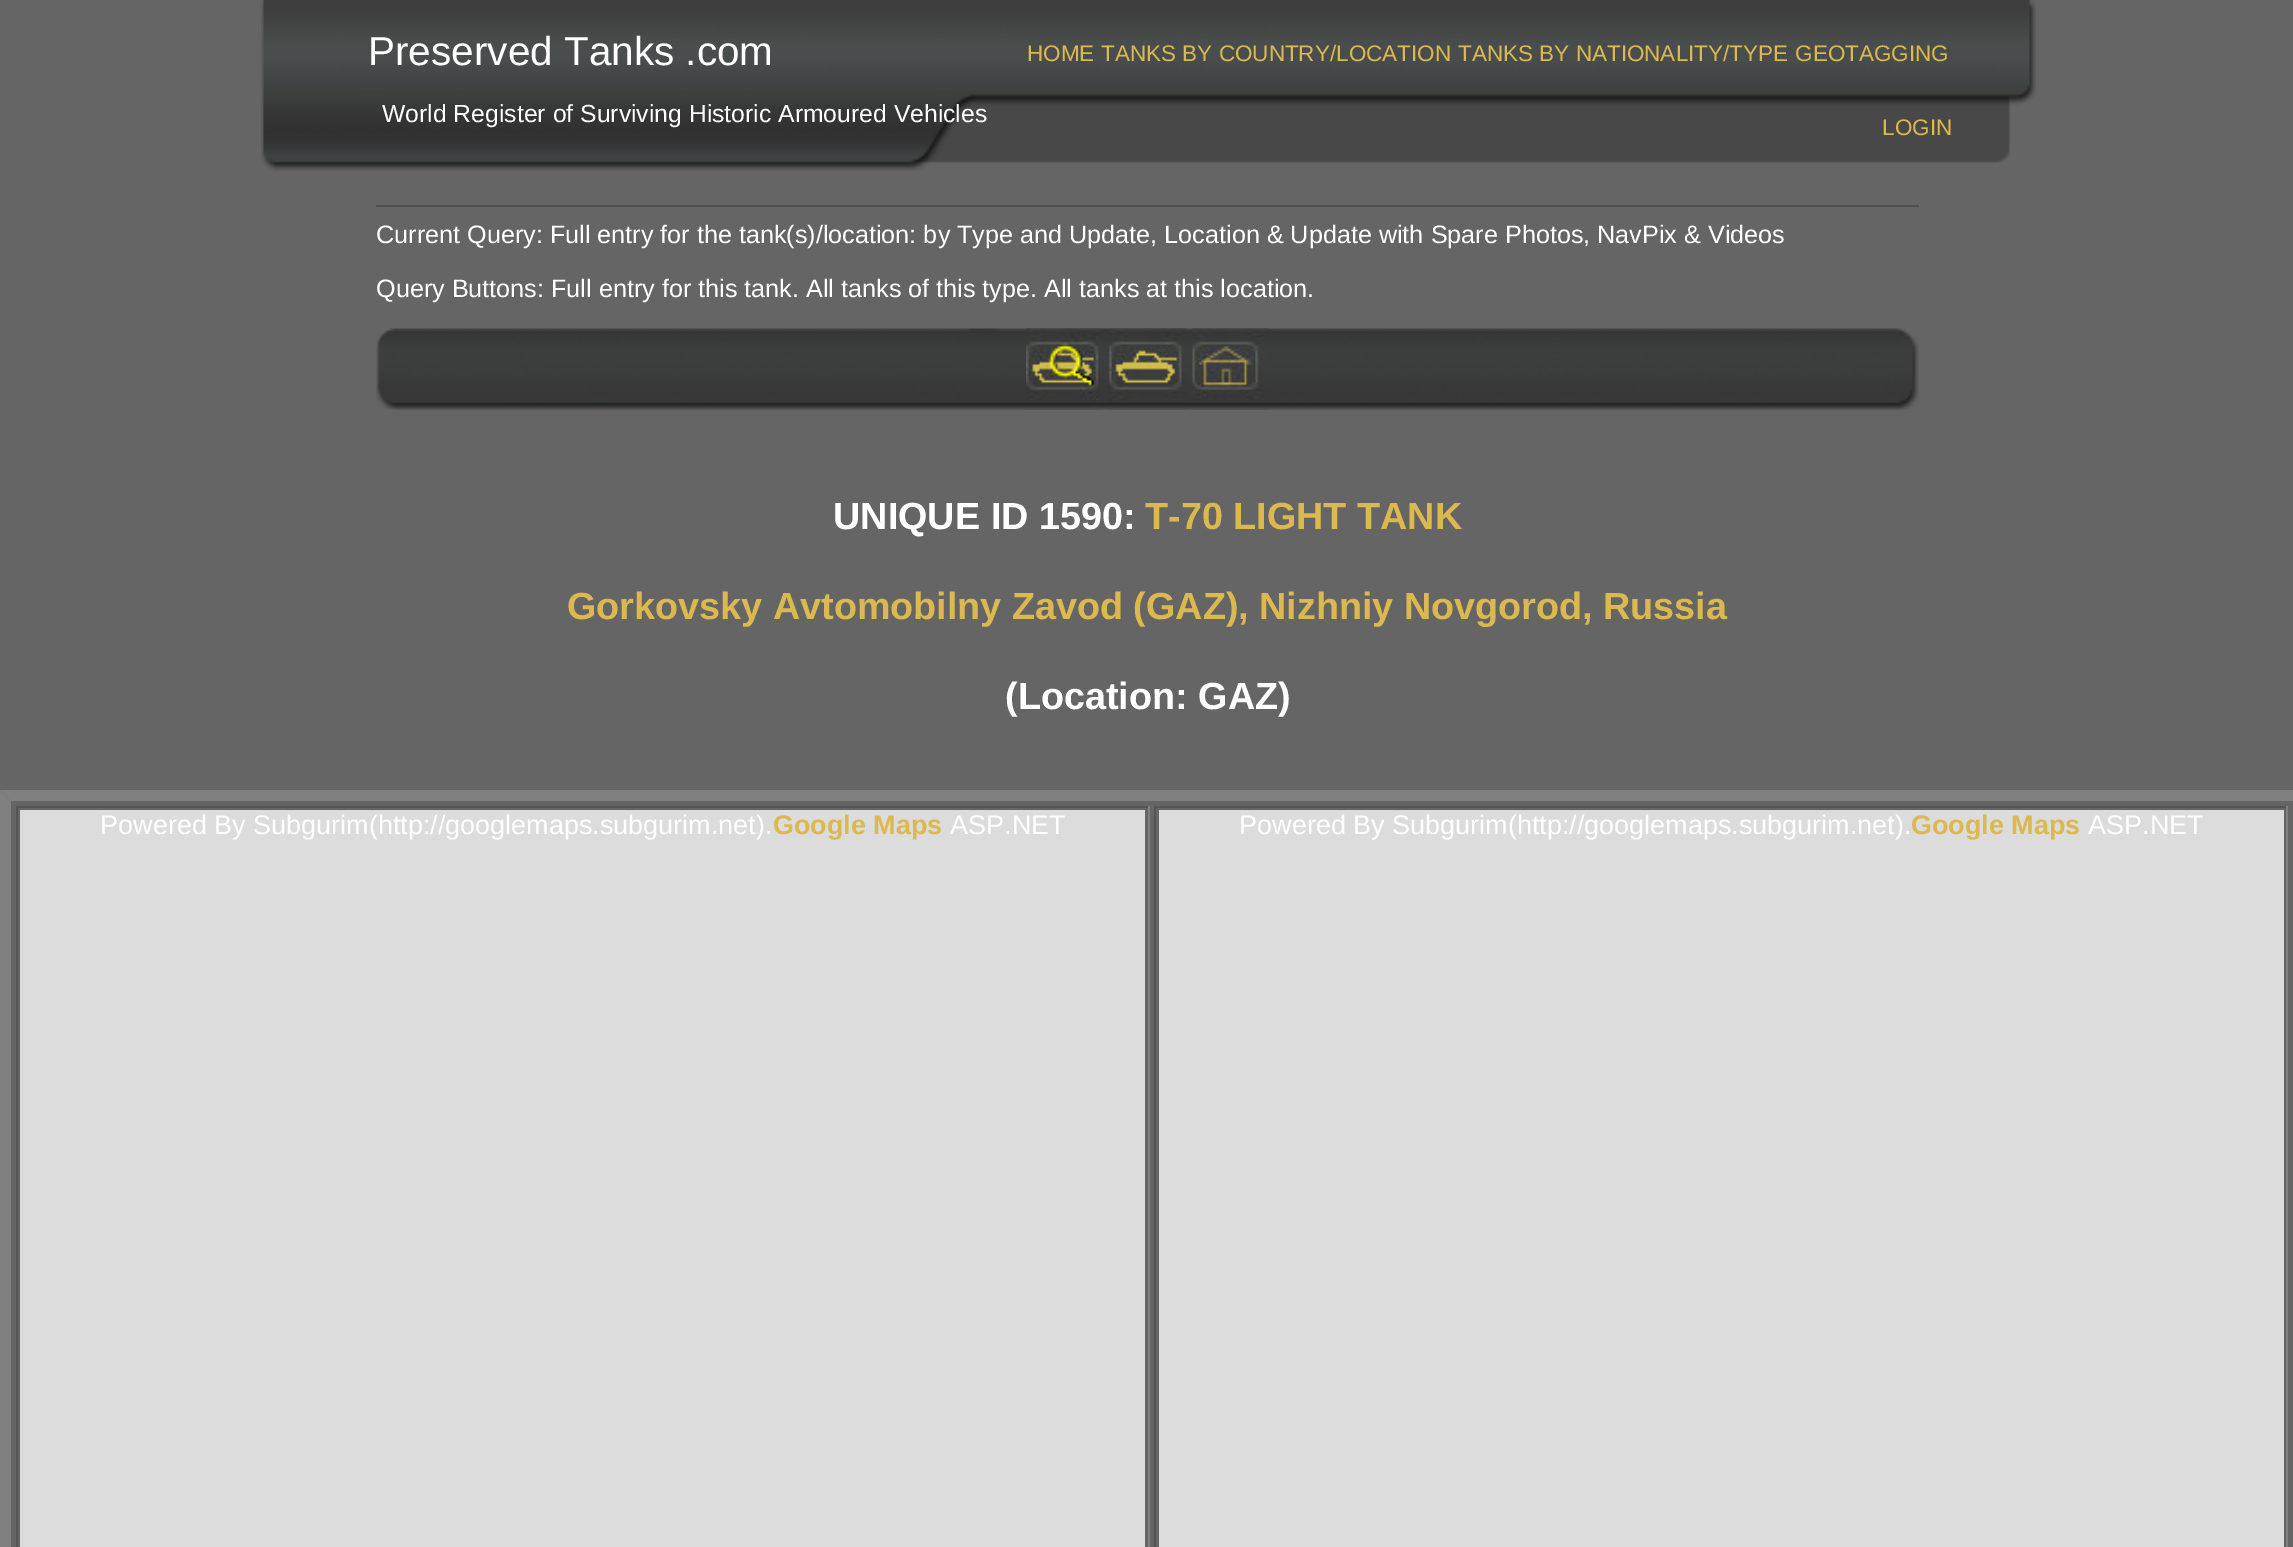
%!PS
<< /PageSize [2293 1547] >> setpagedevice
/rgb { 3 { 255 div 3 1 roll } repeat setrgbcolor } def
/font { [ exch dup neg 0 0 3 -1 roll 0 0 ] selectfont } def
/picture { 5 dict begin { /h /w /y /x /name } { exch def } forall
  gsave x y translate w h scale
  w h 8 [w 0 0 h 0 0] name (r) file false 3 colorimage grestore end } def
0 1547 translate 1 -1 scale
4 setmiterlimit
101 101 101 rgb
0 0 2293 1547 rectfill
(img/1.rgb) 261 0 1775 171 picture
80 80 80 rgb
376 205 1543 2 rectfill
(img/2.rgb) 376 328 1543 82 picture
(img/3.rgb) 1026 328 77 82 picture
(img/4.rgb) 1109 328 77 82 picture
(img/5.rgb) 1192 328 77 82 picture
128 128 128 rgb
0 790 moveto 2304 790 lineto 2293 801 lineto 11 801 lineto closepath fill
0 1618 moveto 0 790 lineto 11 801 lineto 11 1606 lineto closepath fill
[
  [16 806 1134 2 85 85 85]
  [1148 806 2 741 128 128 128]
  [16 806 2 741 85 85 85]
  [20 810 1125 737 220 220 220]
  [1154 806 1134 2 85 85 85]
  [2286 806 2 741 128 128 128]
  [1154 806 2 741 85 85 85]
  [1159 810 1125 737 220 220 220]
] { aload pop rgb rectfill } forall
/LiberationSans-Regular 40.5 font
255 255 255 rgb
368 65 moveto (Preserved Tanks .com) show
/LiberationSans-Regular 24.75 font
382 122 moveto (World Register of Surviving Historic Armoured Vehicles) show
/LiberationSans-Regular 22.5 font
219 185 79 rgb
[
  [(HOME) 1027 61]
  [(TANKS BY COUNTRY/LOCATION) 1101 61]
  [(TANKS BY NATIONALITY/TYPE) 1458 61]
  [(GEOTAGGING) 1795 61]
  [(LOGIN) 1882 135]
] { aload pop moveto show } forall
/LiberationSans-Regular 25.2 font
255 255 255 rgb
376 243 moveto (Current Query: Full entry for the tank\(s\)/location: by Type and Update, Location & Update with Spare Photos, NavPix & Videos) show
376 297 moveto (Query Buttons: Full entry for this tank. All tanks of this type. All tanks at this location.) show
/LiberationSans-Bold 37.8 font
833 529 moveto (UNIQUE ID 1590:) show
219 185 79 rgb
1145 529 moveto (T-70 LIGHT TANK) show
567 619 moveto -0.25 0 32 (Gorkovsky Avtomobilny Zavod \(GAZ\), Nizhniy Novgorod, Russia) widthshow
255 255 255 rgb
1005 709 moveto (\(Location: GAZ\)) show
/LiberationSans-Regular 27 font
100 834 moveto (Powered By Subgurim\(http://googlemaps.subgurim.net\).) show
/LiberationSans-Bold 27 font
219 185 79 rgb
773 834 moveto (Google Maps) show
/LiberationSans-Regular 27 font
255 255 255 rgb
950 834 moveto (ASP.NET) show
1239 834 moveto (Powered By Subgurim\(http://googlemaps.subgurim.net\).) show
/LiberationSans-Bold 27 font
219 185 79 rgb
1911 834 moveto (Google Maps) show
/LiberationSans-Regular 27 font
255 255 255 rgb
2088 834 moveto (ASP.NET) show
showpage
